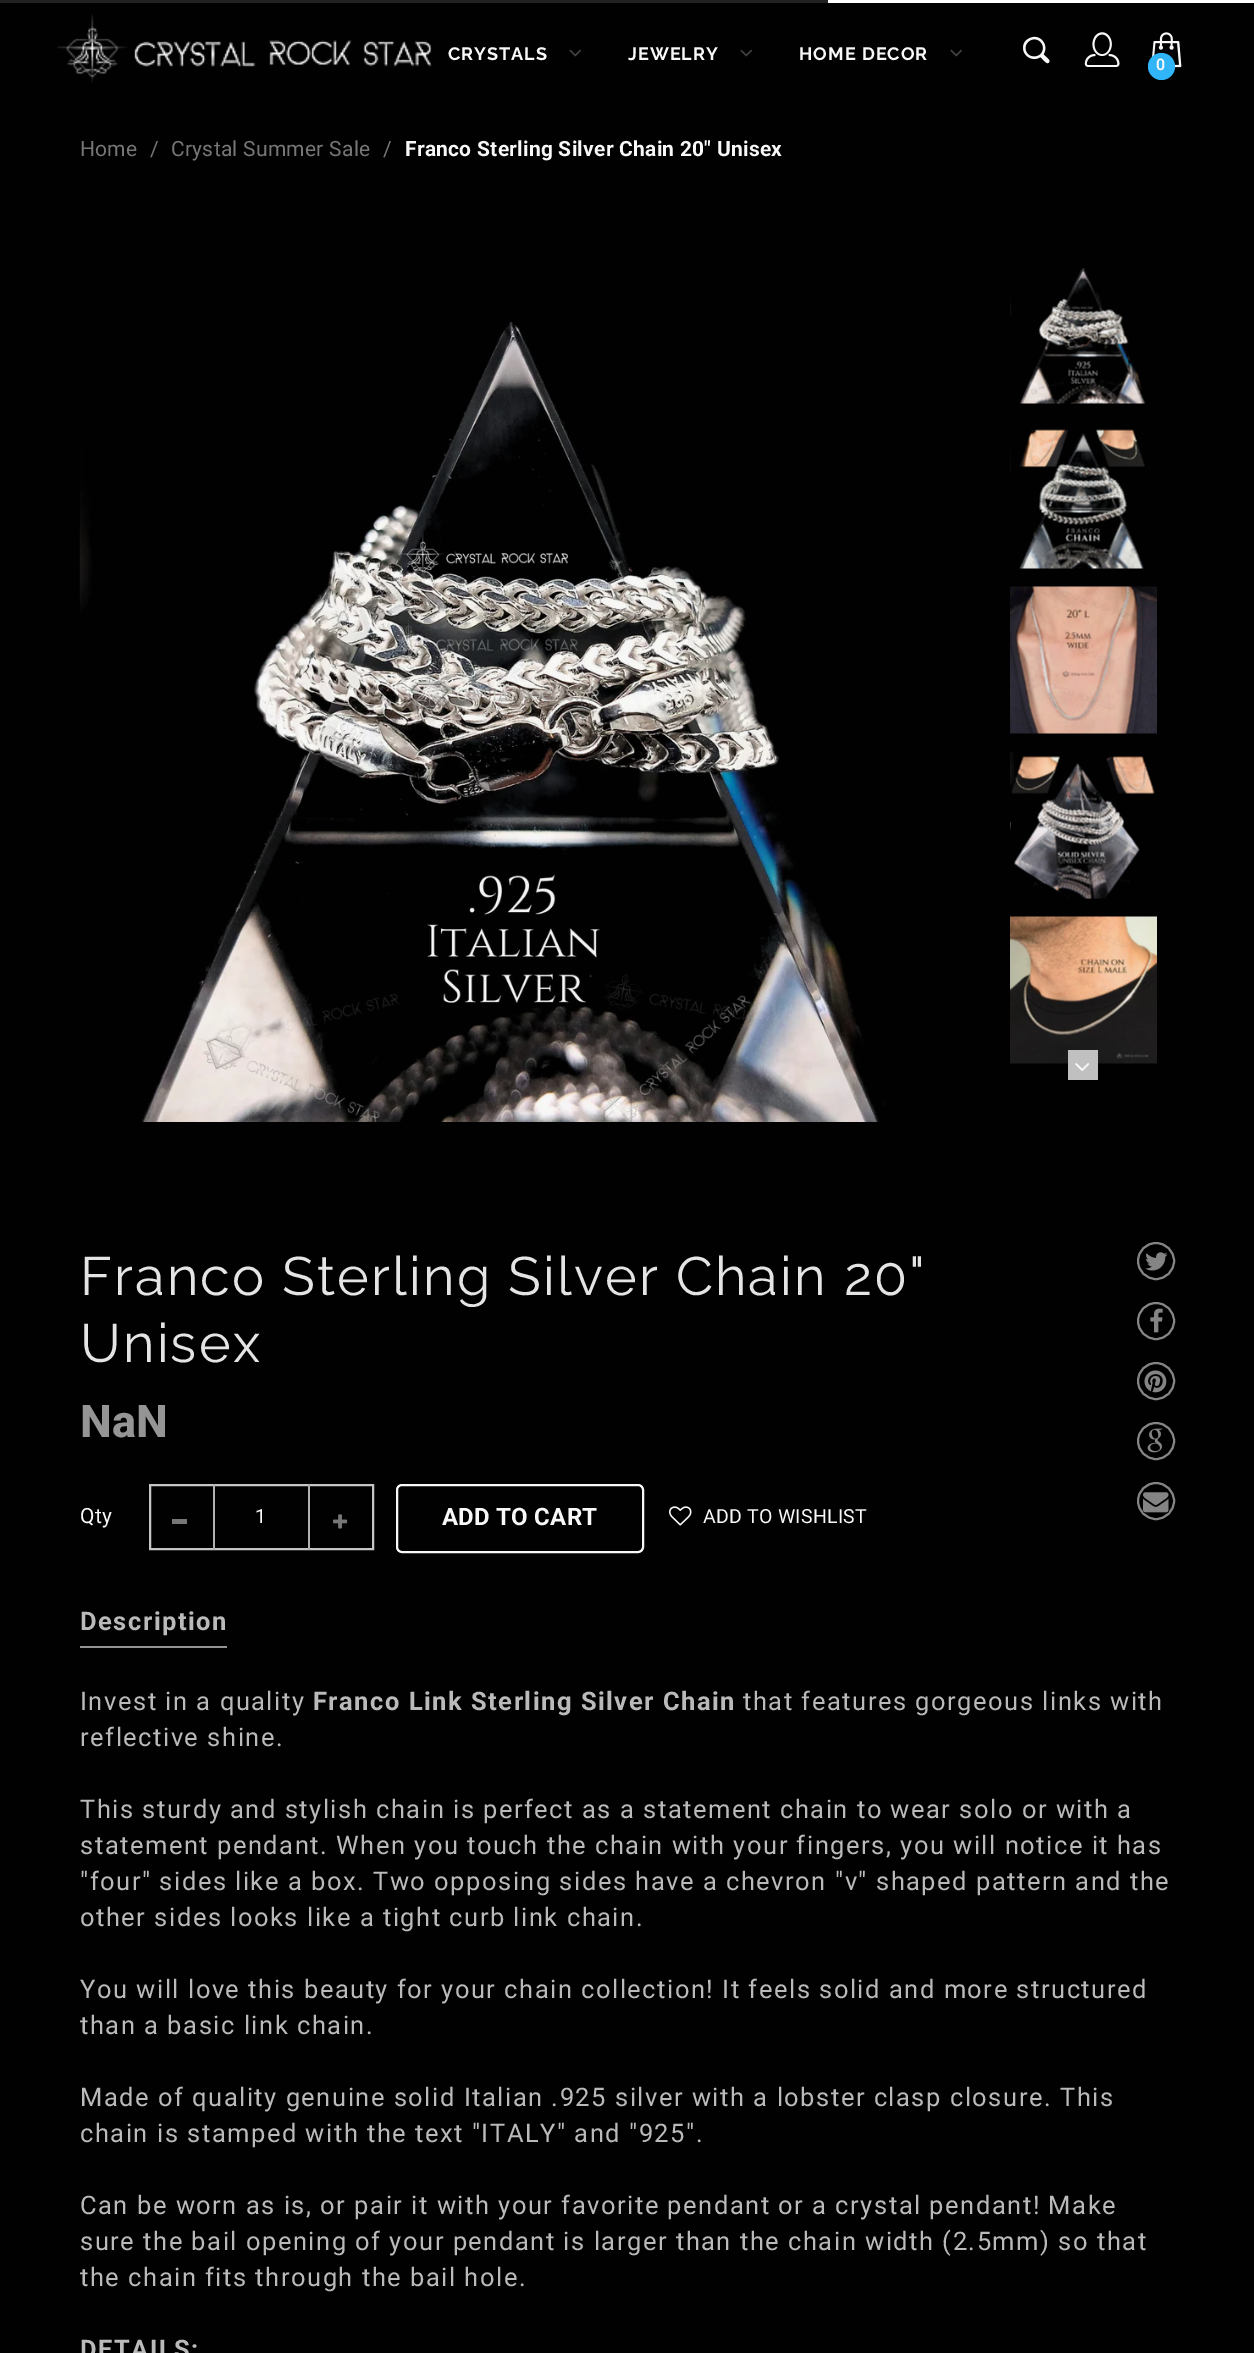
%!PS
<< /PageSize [1254 2353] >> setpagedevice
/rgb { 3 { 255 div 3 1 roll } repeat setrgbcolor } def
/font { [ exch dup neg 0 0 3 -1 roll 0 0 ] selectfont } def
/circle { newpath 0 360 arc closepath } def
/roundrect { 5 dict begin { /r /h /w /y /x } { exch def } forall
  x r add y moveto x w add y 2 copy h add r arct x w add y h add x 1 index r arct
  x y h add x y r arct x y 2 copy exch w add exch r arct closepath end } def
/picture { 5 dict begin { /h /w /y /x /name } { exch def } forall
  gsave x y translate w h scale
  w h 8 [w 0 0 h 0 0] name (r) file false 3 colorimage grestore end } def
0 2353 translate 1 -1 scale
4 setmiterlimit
1 1 1 rgb
0 0 1254 2353 rectfill
255 255 255 rgb
828 0 426 3 rectfill
34 34 34 rgb
0 0 828 3 rectfill
(img/1.rgb) 57 13 375 70 picture
(img/2.rgb) 569 49 12 8 picture
(img/2.rgb) 740 49 12 8 picture
(img/2.rgb) 950 49 12 8 picture
(img/3.rgb) 1023 36 27 28 picture
(img/4.rgb) 1084 32 36 35 picture
(img/5.rgb) 1152 32 30 36 picture
48 181 248 rgb
1161.5 66.5 13.5 circle fill
(img/6.rgb) 79 321 806 801 picture
(img/7.rgb) 1010 267 136 137 picture
(img/8.rgb) 1010 429 135 140 picture
(img/9.rgb) 1010 586 147 148 picture
(img/10.rgb) 1010 751 145 148 picture
(img/11.rgb) 1010 916 147 148 picture
192 192 192 rgb
1068 1050 30 30 rectfill
(img/12.rgb) 1075 1063 15 9 picture
132 132 132 rgb
2 setlinewidth
1156 1261 18 circle stroke
(img/13.rgb) 1145 1252 23 19 picture
1156 1321 18 circle stroke
(img/14.rgb) 1150 1308 13 25 picture
1156 1381 18 circle stroke
(img/15.rgb) 1144 1370 23 23 picture
1156 1441 18 circle stroke
(img/16.rgb) 1147 1428 16 25 picture
1156 1501 18 circle stroke
(img/17.rgb) 1143 1492 26 21 picture
197 197 197 rgb
150 1485 223 64 rectstroke
[
  [213 1484 2 66 177 177 177]
  [172 1519 15 5 118 118 118]
  [308 1484 2 66 177 177 177]
] { aload pop rgb rectfill } forall
(img/18.rgb) 333 1514 15 15 picture
248 248 248 rgb
397 1485 246 67 5 roundrect stroke
(img/19.rgb) 669 1506 23 20 picture
147 147 147 rgb
80 1646 147 2 rectfill
/Raleway-Bold 18 font
248 248 248 rgb
448 60 moveto 1 0 (CRYSTALS) ashow
628 60 moveto 1 0 (JEWELRY) ashow
799 60 moveto 1 0 (HOME DECOR) ashow
/Roboto-SemiBold 16 font
1156 70 moveto (0) show
/Roboto-Regular 21 font
118 118 118 rgb
80 156 moveto 0.25 0 (Home) ashow
150 156 moveto 0.25 0 (/) ashow
171 156 moveto 0.25 0 (Crystal Summer Sale) ashow
383 156 moveto 0.25 0 (/) ashow
/Roboto-Bold 21 font
248 248 248 rgb
405 156 moveto 0.25 0 (Franco Sterling Silver Chain 20" Unisex) ashow
/Raleway-Regular 54 font
228 228 228 rgb
80 1295 moveto 2.15 0 (Franco Sterling Silver Chain 20") ashow
80 1362 moveto 2.15 0 (Unisex) ashow
/Roboto-ExtraBold 45 font
149 149 149 rgb
80 1437 moveto 0.25 0 (NaN) ashow
/Roboto-Regular 21 font
248 248 248 rgb
80 1523 moveto 0.25 0 (Qty) ashow
/Roboto-Regular 19.5 font
255 1523 moveto (1) show
/Roboto-Bold 24 font
442 1525 moveto 0.25 0 (ADD TO CART) ashow
/Roboto-Regular 19.5 font
703 1523 moveto 0.25 0 (ADD TO WISHLIST) ashow
/Roboto-Bold 25.5 font
186 186 186 rgb
80 1630 moveto 1.5 0 (Description) ashow
/Roboto-Regular 25.5 font
80 1710 moveto 1.5 0 (Invest in a quality) ashow
/Roboto-Bold 25.5 font
313 1710 moveto 1.5 0 (Franco Link Sterling Silver Chain) ashow
/Roboto-Regular 25.5 font
743 1710 moveto 1.5 0 (that features gorgeous links with) ashow
80 1746 moveto 1.5 0 (reflective shine.) ashow
80 1818 moveto 1.5 0 (This sturdy and stylish chain is perfect as a statement chain to wear solo or with a) ashow
80 1854 moveto 1.5 0 (statement pendant. When you touch the chain with your fingers, you will notice it has) ashow
80 1890 moveto 1.5 0 ("four" sides like a box. Two opposing sides have a chevron "v" shaped pattern and the) ashow
80 1926 moveto 1.5 0 (other sides looks like a tight curb link chain.) ashow
80 1998 moveto 1.5 0 (You will love this beauty for your chain collection! It feels solid and more structured) ashow
80 2034 moveto 1.5 0 (than a basic link chain.) ashow
80 2106 moveto 1.5 0 (Made of quality genuine solid Italian .925 silver with a lobster clasp closure. This) ashow
80 2142 moveto 1.5 0 (chain is stamped with the text "ITALY" and "925".) ashow
80 2214 moveto 1.5 0 (Can be worn as is, or pair it with your favorite pendant or a crystal pendant! Make) ashow
80 2250 moveto 1.5 0 (sure the bail opening of your pendant is larger than the chain width \(2.5mm\) so that) ashow
80 2286 moveto 1.5 0 (the chain fits through the bail hole.) ashow
/Roboto-Bold 25.5 font
80 2358 moveto 1.5 0 (DETAILS:) ashow
showpage
